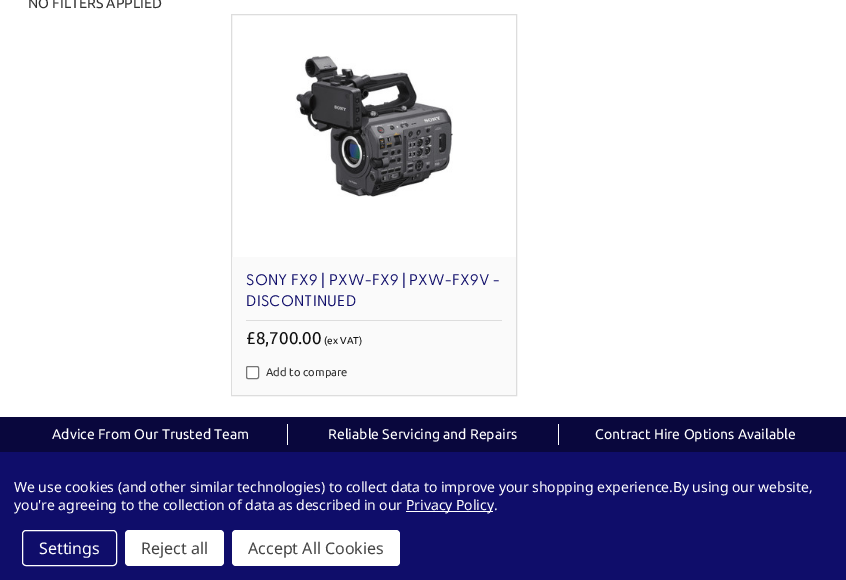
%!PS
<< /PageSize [846 580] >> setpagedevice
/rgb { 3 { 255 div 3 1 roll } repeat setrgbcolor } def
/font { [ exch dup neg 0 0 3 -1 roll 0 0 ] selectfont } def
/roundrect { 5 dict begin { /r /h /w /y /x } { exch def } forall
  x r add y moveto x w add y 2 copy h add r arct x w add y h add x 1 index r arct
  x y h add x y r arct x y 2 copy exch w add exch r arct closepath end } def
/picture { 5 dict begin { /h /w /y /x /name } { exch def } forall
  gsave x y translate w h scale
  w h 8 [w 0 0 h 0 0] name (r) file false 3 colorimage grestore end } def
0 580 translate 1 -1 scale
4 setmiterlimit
255 255 255 rgb
0 0 846 580 rectfill
221 221 221 rgb
231.5 14.5 285 381 rectstroke
(img/1.rgb) 295 55 158 142 picture
250 250 250 rgb
232 257 284 138 rectfill
221 221 221 rgb
246 320 256 1 rectfill
255 255 255 rgb
246.5 366.5 12 12 1.5 roundrect gsave fill grestore
118 118 118 rgb
stroke
[
  [0 417 846 35 9 7 61]
  [558 424 1 21 255 255 255]
  [287 424 1 21 255 255 255]
  [0 452 846 128 15 13 106]
  [406 511 87 1 255 255 255]
] { aload pop rgb rectfill } forall
22.5 530.5 94 35 3.5 roundrect stroke
125 530 99 36 4 roundrect fill
232 530 168 36 4 roundrect fill
/Ubuntu-Regular 14 font
51 51 51 rgb
28 8 moveto (NO FILTERS APPLIED) show
/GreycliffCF-Regular 15.4 font
15 13 106 rgb
246 285 moveto 0.25 0 (SONY FX9 | PXW-FX9 | PXW-FX9V -) ashow
246 306 moveto 0.25 0 (DISCONTINUED) ashow
/Ubuntu-Regular 17 font
17 17 17 rgb
246 344 moveto (£8,700.00) show
/Ubuntu-Regular 10 font
324 344 moveto (\(ex VAT\)) show
/Ubuntu-Regular 11.25 font
51 51 51 rgb
266 376 moveto (Add to compare) show
/Ubuntu-Regular 14 font
255 255 255 rgb
[
  [(Advice From Our Trusted Team) 52 439]
  [(Reliable Servicing and Repairs) 328 439]
  [(Contract Hire Options Available) 595 439]
] { aload pop moveto show } forall
/NotoSans-Regular 14 font
14 492 moveto -0.05 0 (We use cookies \(and other similar technologies\) to collect data to improve your shopping experience.By using our website,) ashow
14 510 moveto -0.05 0 (you're agreeing to the collection of data as described in our) ashow
406 510 moveto -0.05 0 (Privacy Policy.) ashow
/NotoSans-Regular 16 font
39 554 moveto (Settings) show
69 69 69 rgb
141 554 moveto (Reject all) show
248 554 moveto (Accept All Cookies) show
showpage
